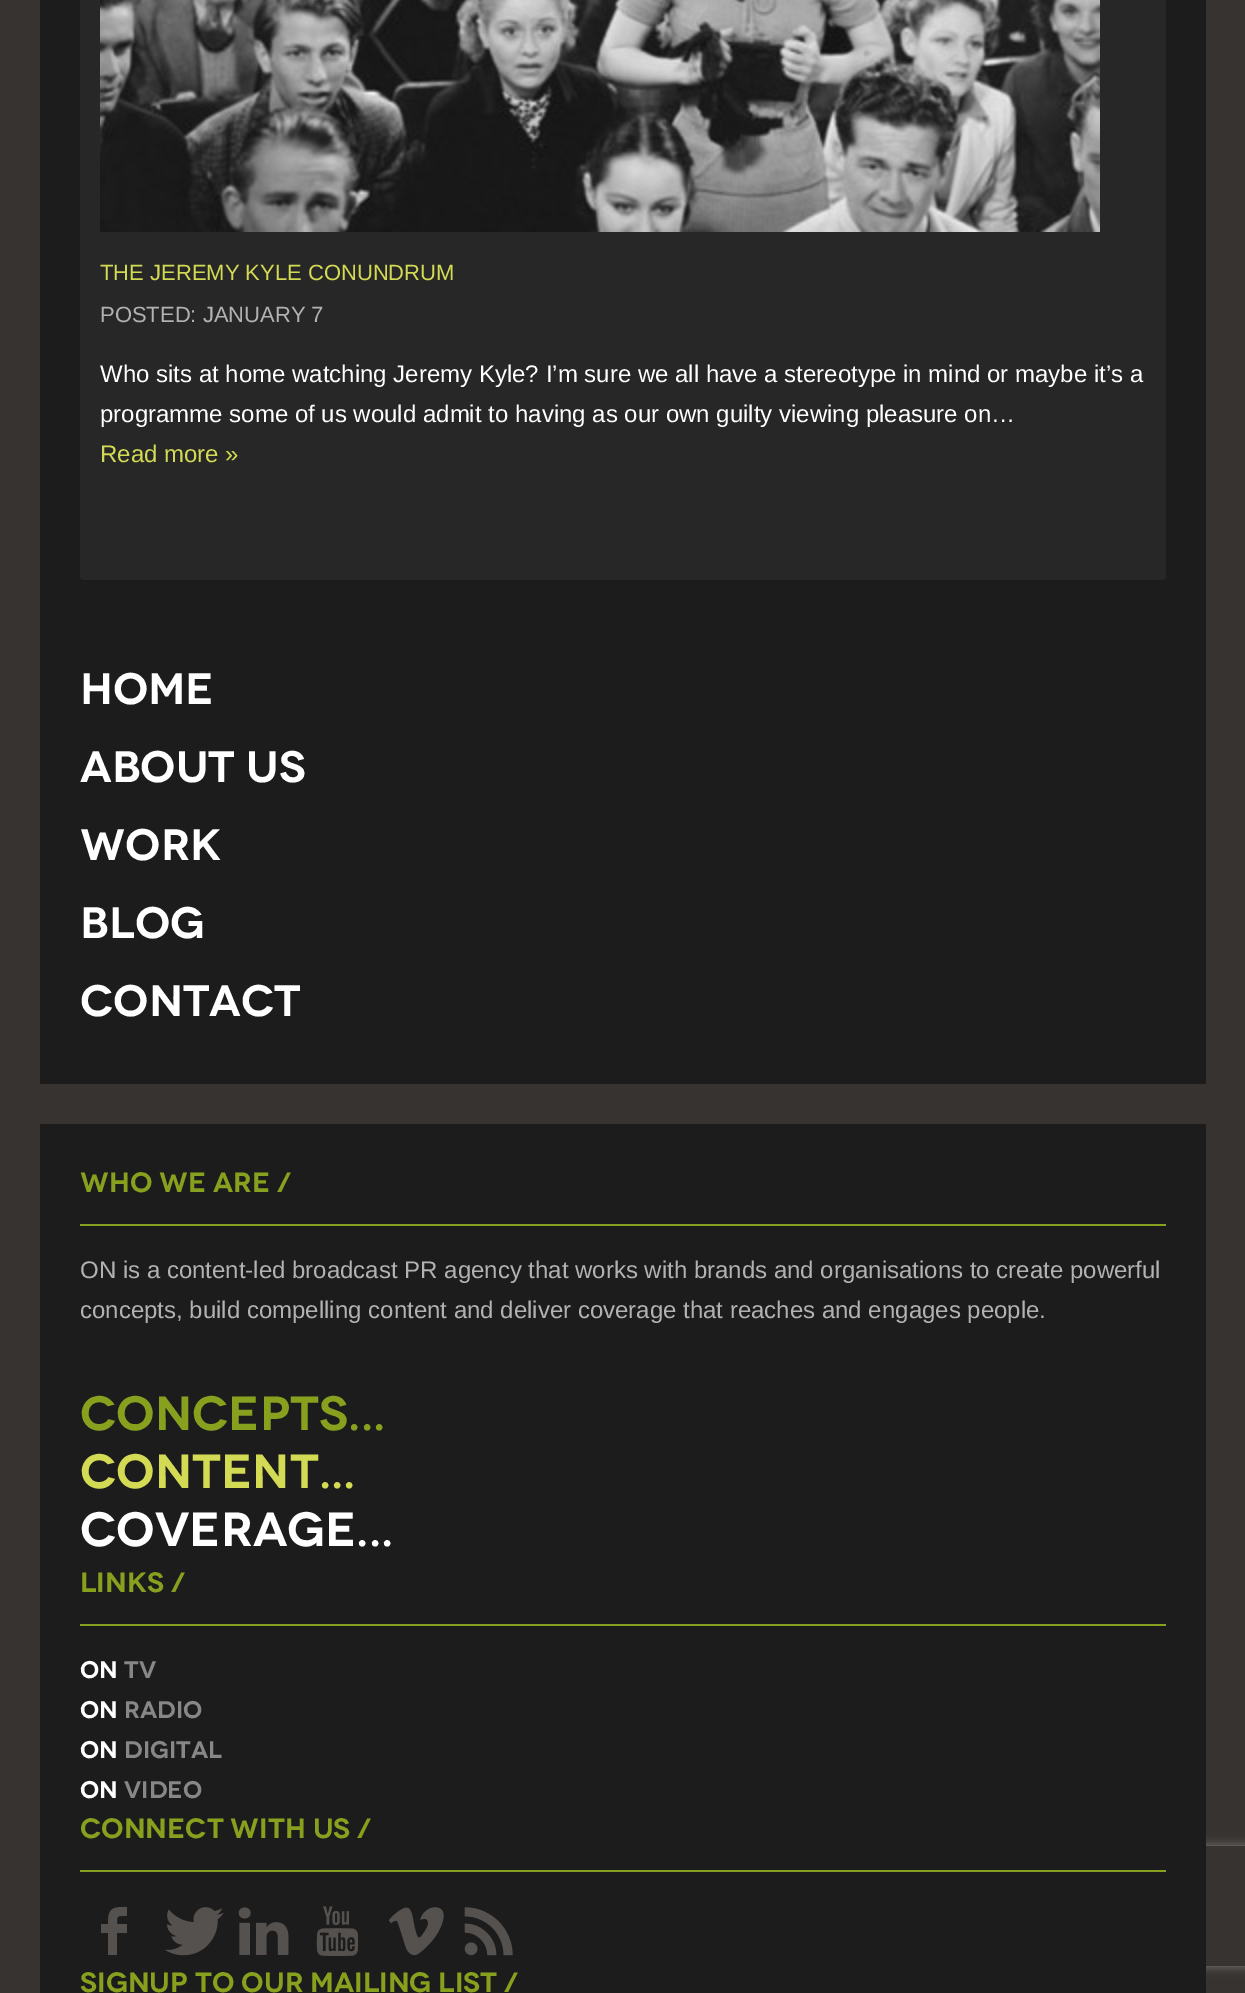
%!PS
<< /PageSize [1245 1993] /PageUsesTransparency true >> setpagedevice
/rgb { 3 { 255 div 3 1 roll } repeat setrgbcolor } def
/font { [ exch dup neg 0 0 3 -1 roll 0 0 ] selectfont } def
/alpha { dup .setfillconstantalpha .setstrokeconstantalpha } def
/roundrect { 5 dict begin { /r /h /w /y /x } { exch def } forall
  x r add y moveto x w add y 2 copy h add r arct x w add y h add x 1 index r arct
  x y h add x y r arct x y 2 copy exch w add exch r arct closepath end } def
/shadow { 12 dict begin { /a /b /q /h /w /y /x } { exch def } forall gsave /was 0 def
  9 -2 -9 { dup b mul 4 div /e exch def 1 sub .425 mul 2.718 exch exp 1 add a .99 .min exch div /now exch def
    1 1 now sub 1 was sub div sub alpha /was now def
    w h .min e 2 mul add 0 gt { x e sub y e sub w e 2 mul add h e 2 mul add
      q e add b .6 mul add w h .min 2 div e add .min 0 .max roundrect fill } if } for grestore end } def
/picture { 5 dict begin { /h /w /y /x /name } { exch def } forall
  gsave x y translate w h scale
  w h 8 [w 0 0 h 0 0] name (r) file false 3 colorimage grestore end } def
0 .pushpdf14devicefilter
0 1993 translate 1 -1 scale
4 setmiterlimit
54 51 49 rgb
0 0 1245 1993 rectfill
28 28 28 rgb
40 0 1166 1084 rectfill
39 39 39 rgb
80 -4 1086 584 4 roundrect fill
(img/1.rgb) 100 0 1000 232 picture
gsave
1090 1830 moveto 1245 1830 lineto 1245 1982 lineto 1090 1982 lineto closepath 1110 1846 moveto 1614 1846 lineto 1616 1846 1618 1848 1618 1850 curveto 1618 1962 lineto 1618 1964 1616 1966 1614 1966 curveto 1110 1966 lineto 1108 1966 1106 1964 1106 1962 curveto 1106 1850 lineto 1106 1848 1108 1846 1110 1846 curveto closepath eoclip newpath
128 128 128 rgb
1106 1846 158 120 4 5 1 shadow
grestore
[
  [40 1124 1166 869 28 28 28]
  [80 1224 1086 2 135 161 30]
  [80 1624 1086 2 135 161 30]
  [80 1870 1086 2 135 161 30]
] { aload pop rgb rectfill } forall
85 81 79 rgb
101 1933 moveto 101 1924 lineto 108 1924 lineto 108 1908 112 1907 127 1907 curveto 127 1916 lineto 117 1916 117 1915 117 1924 curveto 127 1924 lineto 127 1933 lineto 117 1933 lineto 117 1955 lineto 108 1955 lineto 108 1933 lineto closepath fill
(img/2.rgb) 165 1907 59 49 picture
(img/3.rgb) 238 1907 51 48 picture
(img/4.rgb) 316 1906 43 50 picture
(img/5.rgb) 388 1907 56 49 picture
(img/6.rgb) 464 1907 49 49 picture
/LiberationSans-Regular 22 font
211 218 83 rgb
100 280 moveto (THE JEREMY KYLE CONUNDRUM) show
178 178 178 rgb
100 322 moveto (POSTED: JANUARY 7) show
/LiberationSans-Regular 24 font
255 255 255 rgb
100 382 moveto (Who sits at home watching Jeremy Kyle? I’m sure we all have a stereotype in mind or maybe it’s a) show
100 422 moveto (programme some of us would admit to having as our own guilty viewing pleasure on…) show
211 218 83 rgb
100 462 moveto (Read more ») show
/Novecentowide-SemiBold 44 font
255 255 255 rgb
[
  [(Home) 80 704]
  [(About Us) 80 782]
  [(Work) 80 860]
  [(Blog) 80 938]
  [(Contact) 80 1016]
] { aload pop moveto show } forall
/Novecentowide-SemiBold 28 font
135 161 30 rgb
80 1192 moveto (Who We Are /) show
/LiberationSans-Regular 24 font
178 178 178 rgb
80 1278 moveto (ON is a content-led broadcast PR agency that works with brands and organisations to create powerful) show
80 1318 moveto (concepts, build compelling content and deliver coverage that reaches and engages people.) show
/Novecentowide-SemiBold 48 font
135 161 30 rgb
80 1430 moveto (CONCEPTS...) show
211 218 83 rgb
80 1488 moveto (CONTENT...) show
255 255 255 rgb
80 1546 moveto (COVERAGE...) show
/Novecentowide-SemiBold 28 font
135 161 30 rgb
80 1592 moveto (Links /) show
/Novecentowide-SemiBold 24 font
255 255 255 rgb
80 1678 moveto (On) show
135 135 135 rgb
124 1678 moveto (TV) show
255 255 255 rgb
80 1718 moveto (On) show
135 135 135 rgb
124 1718 moveto (Radio) show
255 255 255 rgb
80 1758 moveto (On) show
135 135 135 rgb
124 1758 moveto (Digital) show
255 255 255 rgb
80 1798 moveto (On) show
135 135 135 rgb
124 1798 moveto (Video) show
/Novecentowide-SemiBold 28 font
135 161 30 rgb
80 1838 moveto (Connect With Us /) show
80 1992 moveto (Signup To Our Mailing List /) show
.poppdf14devicefilter showpage
